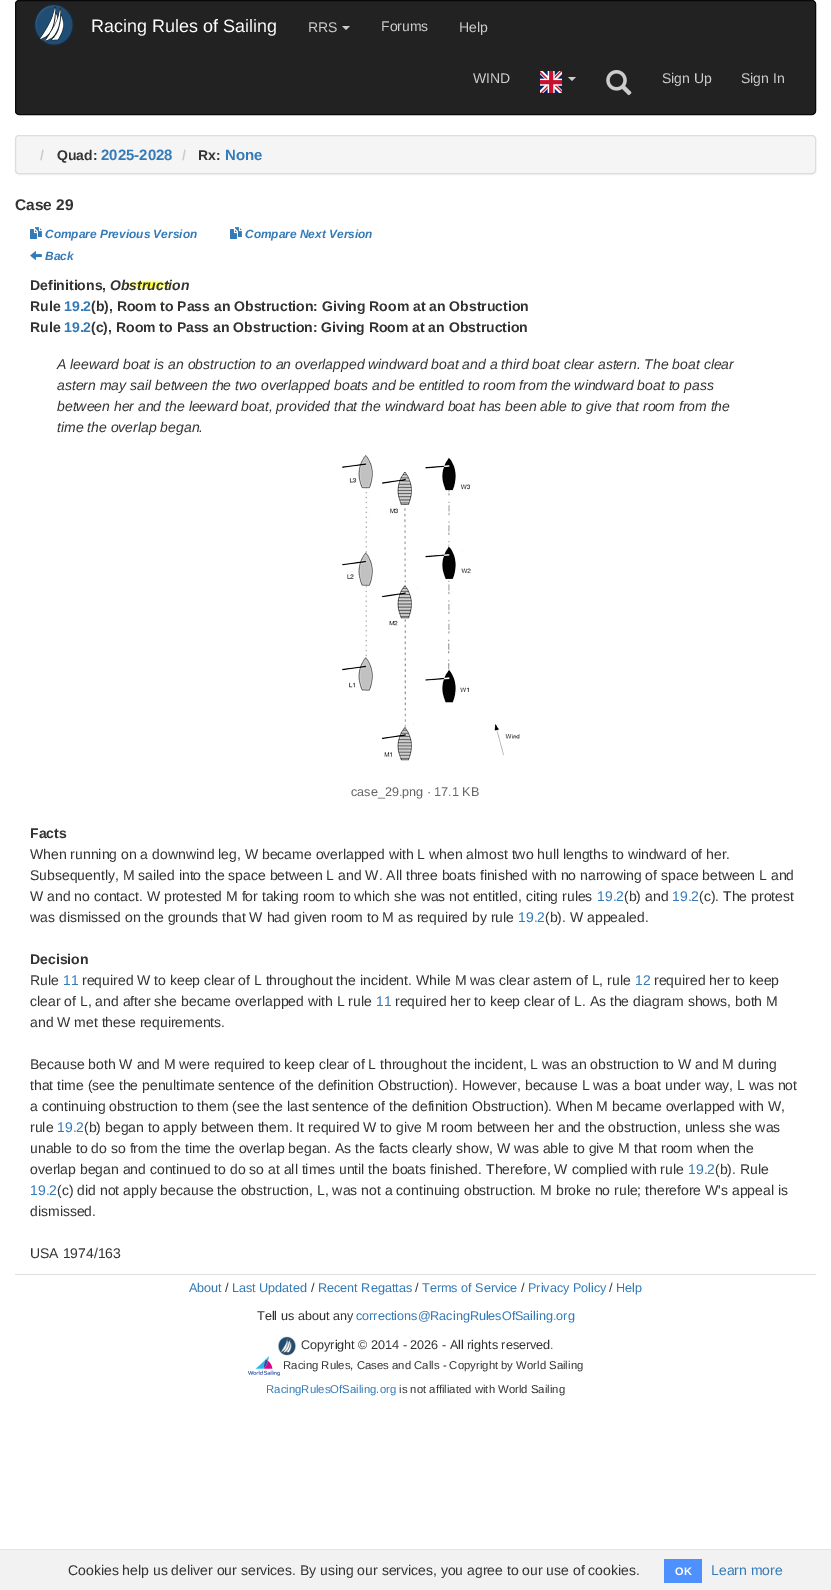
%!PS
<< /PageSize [831 1590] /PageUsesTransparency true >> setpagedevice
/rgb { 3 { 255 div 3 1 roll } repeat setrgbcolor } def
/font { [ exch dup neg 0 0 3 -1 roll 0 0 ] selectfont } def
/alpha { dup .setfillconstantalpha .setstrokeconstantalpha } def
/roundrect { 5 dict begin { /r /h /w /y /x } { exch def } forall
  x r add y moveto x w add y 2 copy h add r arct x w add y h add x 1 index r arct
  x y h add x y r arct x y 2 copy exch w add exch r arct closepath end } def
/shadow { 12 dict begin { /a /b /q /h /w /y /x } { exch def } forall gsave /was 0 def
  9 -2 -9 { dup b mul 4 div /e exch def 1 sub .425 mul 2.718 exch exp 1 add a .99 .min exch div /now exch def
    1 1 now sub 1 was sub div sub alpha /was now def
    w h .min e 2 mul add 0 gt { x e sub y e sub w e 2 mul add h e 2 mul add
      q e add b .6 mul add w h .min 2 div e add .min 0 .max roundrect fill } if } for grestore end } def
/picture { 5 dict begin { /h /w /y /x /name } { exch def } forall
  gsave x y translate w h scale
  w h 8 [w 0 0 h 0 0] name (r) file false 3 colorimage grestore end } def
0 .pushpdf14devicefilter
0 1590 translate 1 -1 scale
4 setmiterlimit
255 255 255 rgb
0 0 831 1590 rectfill
34 34 34 rgb
15.5 0.5 800 114 3.5 roundrect gsave fill grestore
9 9 9 rgb
stroke
(img/1.rgb) 34 4 40 42 picture
204 204 204 rgb
342 26 moveto 350 26 lineto 346 30 lineto closepath fill
(img/2.rgb) 540 71 22 22 picture
568 77 moveto 576 77 lineto 572 81 lineto closepath fill
(img/3.rgb) 606 70 26 26 picture
0 0 0 rgb
15 136 801 39 4 0.5 0.05 shadow
245 245 245 rgb
15.5 135.5 800 38 3.5 roundrect gsave fill grestore
221 221 221 rgb
stroke
(img/4.rgb) 30 227 12 12 picture
(img/4.rgb) 230 227 12 12 picture
(img/5.rgb) 30 251 12 10 picture
gsave 122 280 moveto 178 280 lineto 178 290 lineto 122 290 lineto closepath clip newpath 150 285 translate 56 11 scale
<< /ShadingType 3 /ColorSpace /DeviceRGB /Coords [0 0 0 0 0 1] /Extend [true true] /Function << /FunctionType 3 /Domain [0 1] /Functions [<< /FunctionType 2 /Domain [0 1] /C0 [1 1 0] /C1 [1 1 1] /N 1 >> << /FunctionType 2 /Domain [0 1] /C0 [1 1 1] /C1 [1 1 1] /N 1 >>] /Bounds [0.5] /Encode [0 1 0 1] >> >> shfill grestore
(img/6.rgb) 342 455 178 306 picture
15 1274 801 1 rectfill
(img/7.rgb) 278 1336 18 20 picture
(img/8.rgb) 248 1356 32 20 picture
[
  [0 1550 831 40 242 242 242]
  [0 1549 831 1 228 228 228]
  [664 1559 38 24 77 144 254]
] { aload pop rgb rectfill } forall
/LiberationSans-Regular 18 font
255 255 255 rgb
91 32 moveto (Racing Rules of Sailing) show
/LiberationSans-Regular 14 font
204 204 204 rgb
[
  [(RRS) 308 32]
  [(Forums) 381 31]
  [(Help) 459 32]
  [(WIND) 473 83]
  [(Sign Up) 662 83]
  [(Sign In) 741 83]
] { aload pop moveto show } forall
/LiberationSans-Bold 14 font
40 160 moveto (/) show
51 51 51 rgb
57 160 moveto (Quad:) show
/LiberationSans-Bold 15 font
51 122 183 rgb
101 160 moveto (2025-2028) show
/LiberationSans-Bold 14 font
204 204 204 rgb
182 160 moveto (/) show
51 51 51 rgb
198 160 moveto (Rx:) show
/LiberationSans-Bold 15 font
51 122 183 rgb
225 160 moveto (None) show
/LiberationSans-Bold 15.5 font
51 51 51 rgb
15 210 moveto (Case 29) show
/LiberationSans-BoldItalic 11.9 font
51 122 183 rgb
[
  [(Compare Previous Version) 45 238]
  [(Compare Next Version) 245 238]
  [(Back) 45 260]
] { aload pop moveto show } forall
/LiberationSans-Bold 14 font
51 51 51 rgb
30 290 moveto (Definitions,) show
/LiberationSans-BoldItalic 14 font
110 290 moveto (Obstruction) show
/LiberationSans-Bold 14 font
30 311 moveto (Rule) show
51 122 183 rgb
64 311 moveto (19.2) show
51 51 51 rgb
91 311 moveto (\(b\), Room to Pass an Obstruction: Giving Room at an Obstruction) show
30 332 moveto (Rule) show
51 122 183 rgb
64 332 moveto (19.2) show
51 51 51 rgb
91 332 moveto (\(c\), Room to Pass an Obstruction: Giving Room at an Obstruction) show
/LiberationSans-Italic 14 font
[
  [(A leeward boat is an obstruction to an overlapped windward boat and a third boat clear astern. The boat clear) 57 369]
  [(astern may sail between the two overlapped boats and be entitled to room from the windward boat to pass) 57 390]
  [(between her and the leeward boat, provided that the windward boat has been able to give that room from the) 57 411]
  [(time the overlap began.) 57 432]
] { aload pop moveto show } forall
/LiberationSans-Regular 12.6 font
102 102 102 rgb
351 796 moveto (case_29.png · 17.1 KB) show
/LiberationSans-Bold 14 font
51 51 51 rgb
30 838 moveto (Facts) show
/LiberationSans-Regular 14 font
[
  [(When running on a downwind leg, W became overlapped with L when almost two hull lengths to windward of her.) 30 859]
  [(Subsequently, M sailed into the space between L and W. All three boats finished with no narrowing of space between L and) 30 880]
  [(W and no contact. W protested M for taking room to which she was not entitled, citing rules) 30 901]
] { aload pop moveto show } forall
51 122 183 rgb
597 901 moveto (19.2) show
51 51 51 rgb
624 901 moveto (\(b\) and) show
51 122 183 rgb
672 901 moveto (19.2) show
51 51 51 rgb
699 901 moveto (\(c\). The protest) show
30 922 moveto (was dismissed on the grounds that W had given room to M as required by rule) show
51 122 183 rgb
518 922 moveto (19.2) show
51 51 51 rgb
545 922 moveto (\(b\). W appealed.) show
/LiberationSans-Bold 14 font
30 964 moveto (Decision) show
/LiberationSans-Regular 14 font
30 985 moveto (Rule) show
51 122 183 rgb
63 985 moveto (11) show
51 51 51 rgb
82 985 moveto (required W to keep clear of L throughout the incident. While M was clear astern of L, rule) show
51 122 183 rgb
635 985 moveto (12) show
51 51 51 rgb
654 985 moveto (required her to keep) show
30 1006 moveto (clear of L, and after she became overlapped with L rule) show
51 122 183 rgb
376 1006 moveto (11) show
51 51 51 rgb
[
  [(required her to keep clear of L. As the diagram shows, both M) 395 1006]
  [(and W met these requirements.) 30 1027]
  [(Because both W and M were required to keep clear of L throughout the incident, L was an obstruction to W and M during) 30 1069]
  [(that time \(see the penultimate sentence of the definition Obstruction\). However, because L was a boat under way, L was not) 30 1090]
  [(a continuing obstruction to them \(see the last sentence of the definition Obstruction\). When M became overlapped with W,) 30 1111]
  [(rule) 30 1132]
] { aload pop moveto show } forall
51 122 183 rgb
57 1132 moveto (19.2) show
51 51 51 rgb
[
  [(\(b\) began to apply between them. It required W to give M room between her and the obstruction, unless she was) 84 1132]
  [(unable to do so from the time the overlap began. As the facts clearly show, W was able to give M that room when the) 30 1153]
  [(overlap began and continued to do so at all times until the boats finished. Therefore, W complied with rule) 30 1174]
] { aload pop moveto show } forall
51 122 183 rgb
688 1174 moveto (19.2) show
51 51 51 rgb
715 1174 moveto (\(b\). Rule) show
51 122 183 rgb
30 1195 moveto (19.2) show
51 51 51 rgb
[
  [(\(c\) did not apply because the obstruction, L, was not a continuing obstruction. M broke no rule; therefore W's appeal is) 57 1195]
  [(dismissed.) 30 1216]
  [(USA 1974/163) 30 1258]
] { aload pop moveto show } forall
/LiberationSans-Regular 12.6 font
51 122 183 rgb
189 1292 moveto (About) show
51 51 51 rgb
225 1292 moveto (/) show
51 122 183 rgb
232 1292 moveto (Last Updated) show
51 51 51 rgb
311 1292 moveto (/) show
51 122 183 rgb
318 1292 moveto (Recent Regattas) show
51 51 51 rgb
415 1292 moveto (/) show
51 122 183 rgb
422 1292 moveto (Terms of Service) show
51 51 51 rgb
521 1292 moveto (/) show
51 122 183 rgb
528 1292 moveto (Privacy Policy) show
51 51 51 rgb
609 1292 moveto (/) show
51 122 183 rgb
616 1292 moveto (Help) show
51 51 51 rgb
257 1320 moveto (Tell us about any) show
51 122 183 rgb
356 1320 moveto (corrections@RacingRulesOfSailing.org) show
51 51 51 rgb
301 1349 moveto (Copyright © 2014 - 2026 - All rights reserved.) show
/LiberationSans-Regular 11.35 font
283 1369 moveto (Racing Rules, Cases and Calls - Copyright by World Sailing) show
51 122 183 rgb
266 1393 moveto (RacingRulesOfSailing.org) show
51 51 51 rgb
399 1393 moveto (is not affiliated with World Sailing) show
/LiberationSans-Regular 14 font
68 1575 moveto (Cookies help us deliver our services. By using our services, you agree to our use of cookies.) show
/LiberationSans-Bold 11 font
255 255 255 rgb
675 1575 moveto (OK) show
/LiberationSans-Regular 14 font
51 122 183 rgb
711 1575 moveto (Learn more) show
.poppdf14devicefilter showpage
